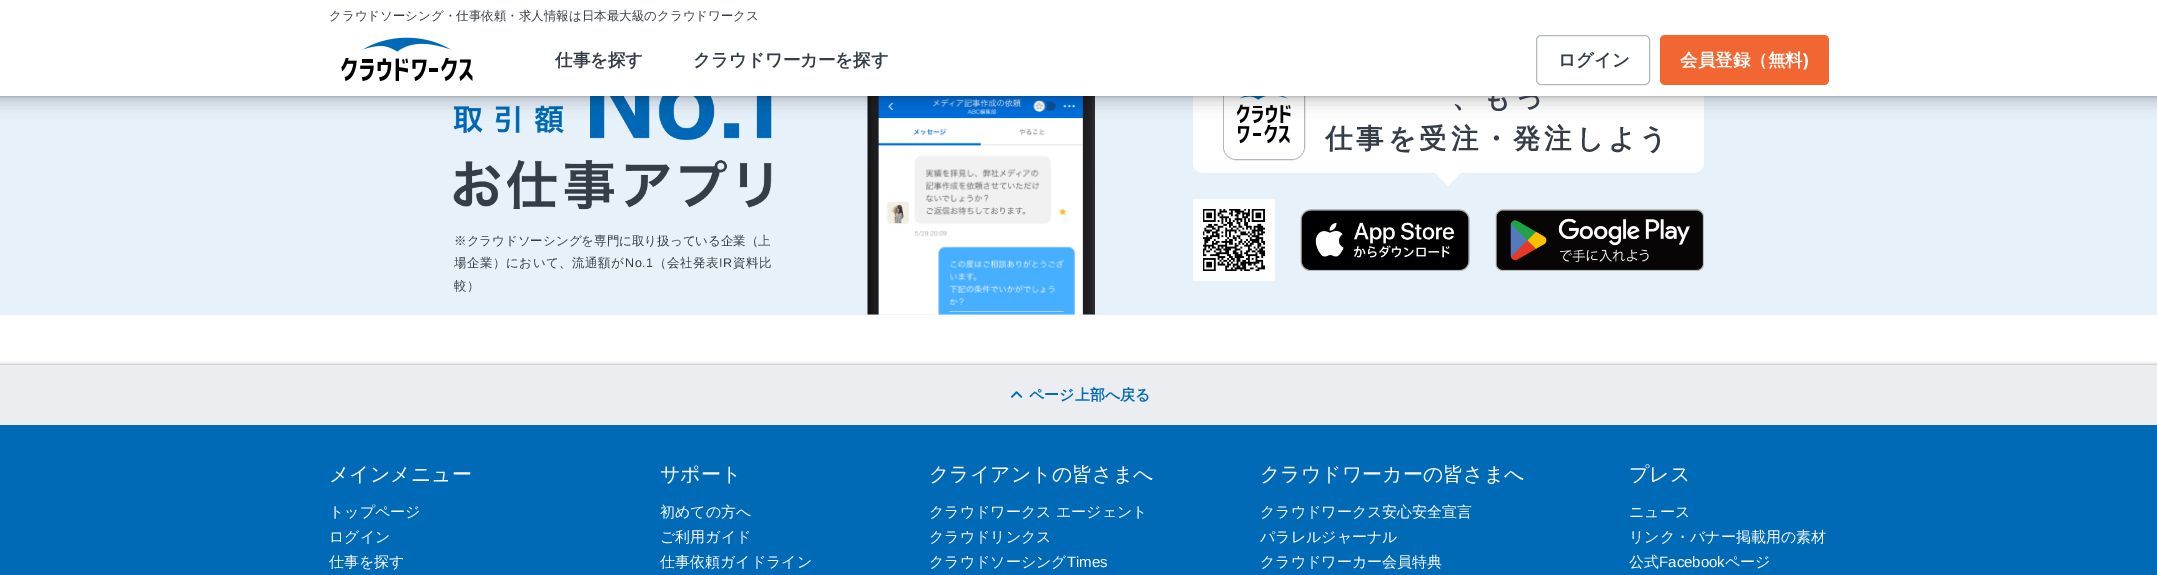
%!PS
<< /PageSize [2157 575] /PageUsesTransparency true >> setpagedevice
/rgb { 3 { 255 div 3 1 roll } repeat setrgbcolor } def
/font { [ exch dup neg 0 0 3 -1 roll 0 0 ] selectfont } def
/alpha { dup .setfillconstantalpha .setstrokeconstantalpha } def
/roundrect { 5 dict begin { /r /h /w /y /x } { exch def } forall
  x r add y moveto x w add y 2 copy h add r arct x w add y h add x 1 index r arct
  x y h add x y r arct x y 2 copy exch w add exch r arct closepath end } def
/shadow { 12 dict begin { /a /b /q /h /w /y /x } { exch def } forall gsave /was 0 def
  9 -2 -9 { dup b mul 4 div /e exch def 1 sub .425 mul 2.718 exch exp 1 add a .99 .min exch div /now exch def
    1 1 now sub 1 was sub div sub alpha /was now def
    w h .min e 2 mul add 0 gt { x e sub y e sub w e 2 mul add h e 2 mul add
      q e add b .6 mul add w h .min 2 div e add .min 0 .max roundrect fill } if } for grestore end } def
/picture { 5 dict begin { /h /w /y /x /name } { exch def } forall
  gsave x y translate w h scale
  w h 8 [w 0 0 h 0 0] name (r) file false 3 colorimage grestore end } def
0 .pushpdf14devicefilter
0 575 translate 1 -1 scale
4 setmiterlimit
255 255 255 rgb
0 0 2157 575 rectfill
231 241 250 rgb
0 96 2157 219 rectfill
(img/2.rgb) 453 96 319 114 picture
(img/3.rgb) 867 96 228 219 picture
255 255 255 rgb
1193 65 511 108 10 roundrect fill
175 183 193 rgb
1223.5 78.5 81 81 12.5 roundrect stroke
(img/4.rgb) 1224 96 80 63 picture
0 0 0 rgb
-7 -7 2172 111 0 7.5 0.15 shadow
0 0 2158 96 0 2.5 0.3 shadow
255 255 255 rgb
1461 173 moveto 1435 173 lineto 1448 186 lineto closepath fill
1193 199 82 82 rectfill
(img/5.rgb) 1203 209 62 62 picture
(img/6.rgb) 1300 209 170 62 picture
(img/7.rgb) 1495 209 209 62 picture
0 0 0 rgb
-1 364 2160 62 0 2 0.15 shadow
0 365 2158 60 0 1 0.3 shadow
236 237 240 rgb
0 365 2157 60 rectfill
(img/8.rgb) 1011 391 12 7 picture
0 106 182 rgb
0 425 2157 150 rectfill
/WenQuanYiZenHei-Medium 12.5 font
53 61 72 rgb
454 245 moveto (※クラウドソーシングを専門に取り扱っている企業（上) show
454 267 moveto 0.5 0 (場企業）において、流通額が) ashow
/LiberationSans-Regular 12.5 font
625 267 moveto 0.5 0 (No.1) ashow
/WenQuanYiZenHei-Medium 12.5 font
654 267 moveto 0.5 0 (（会社発表) ashow
/LiberationSans-Regular 12.5 font
719 267 moveto 0.5 0 (IR) ashow
/WenQuanYiZenHei-Medium 12.5 font
733 267 moveto 0.5 0 (資料比) ashow
454 290 moveto (較）) show
/WenQuanYiZenHei-Bold 27.5 font
1452 107 moveto 3.75 0 (、もっ) ashow
255 255 255 rgb
0 0 2157 96 rectfill
242 103 49 rgb
1660 35 169 50 5 roundrect fill
/WenQuanYiZenHei-Bold 17.5 font
255 255 255 rgb
1680 66 moveto (会員登録（無料) show
/LiberationSans-Bold 17.5 font
1803 66 moveto (\)) show
175 183 193 rgb
1536.5 35.5 113 49 4.5 roundrect stroke
/WenQuanYiZenHei-Bold 17.5 font
53 61 72 rgb
[
  [(ログイン) 1558 66]
  [(クラウドワーカーを探す) 693 66]
  [(仕事を探す) 555 66]
] { aload pop moveto show } forall
(img/1.rgb) 341 37 132 44 picture
/WenQuanYiZenHei-Medium 12.5 font
329 20 moveto (クラウドソーシング・仕事依頼・求人情報は日本最大級のクラウドワークス) show
/WenQuanYiZenHei-Bold 27.5 font
1325 148 moveto 3.75 0 (仕事を受注・発注しよう) ashow
/WenQuanYiZenHei-Bold 15 font
0 106 182 rgb
1029 400 moveto (ページ上部へ戻る) show
/WenQuanYiZenHei-Medium 20 font
255 255 255 rgb
329 481 moveto (メインメニュー) show
/WenQuanYiZenHei-Medium 15 font
[
  [(トップページ) 329 517]
  [(ログイン) 329 542]
  [(仕事を探す) 329 567]
] { aload pop moveto show } forall
/WenQuanYiZenHei-Medium 20 font
660 481 moveto (サポート) show
/WenQuanYiZenHei-Medium 15 font
[
  [(初めての方へ) 660 517]
  [(ご利用ガイド) 660 542]
  [(仕事依頼ガイドライン) 660 567]
] { aload pop moveto show } forall
/WenQuanYiZenHei-Medium 20 font
929 481 moveto (クライアントの皆さまへ) show
/WenQuanYiZenHei-Medium 15 font
[
  [(クラウドワークス エージェント) 929 517]
  [(クラウドリンクス) 929 542]
  [(クラウドソーシング) 929 567]
] { aload pop moveto show } forall
/LiberationSans-Regular 15 font
1067 567 moveto (Times) show
/WenQuanYiZenHei-Medium 20 font
1260 481 moveto (クラウドワーカーの皆さまへ) show
/WenQuanYiZenHei-Medium 15 font
[
  [(クラウドワークス安心安全宣言) 1260 517]
  [(パラレルジャーナル) 1260 542]
  [(クラウドワーカー会員特典) 1260 567]
] { aload pop moveto show } forall
/WenQuanYiZenHei-Medium 20 font
1629 481 moveto (プレス) show
/WenQuanYiZenHei-Medium 15 font
[
  [(ニュース) 1629 517]
  [(リンク・バナー掲載用の素材) 1629 542]
  [(公式) 1629 567]
] { aload pop moveto show } forall
/LiberationSans-Regular 15 font
1659 567 moveto (Facebook) show
/WenQuanYiZenHei-Medium 15 font
1725 567 moveto (ページ) show
.poppdf14devicefilter showpage
